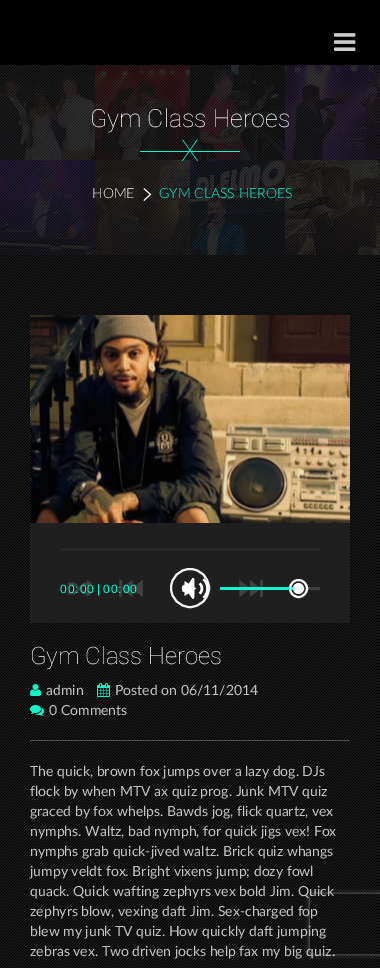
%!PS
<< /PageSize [380 968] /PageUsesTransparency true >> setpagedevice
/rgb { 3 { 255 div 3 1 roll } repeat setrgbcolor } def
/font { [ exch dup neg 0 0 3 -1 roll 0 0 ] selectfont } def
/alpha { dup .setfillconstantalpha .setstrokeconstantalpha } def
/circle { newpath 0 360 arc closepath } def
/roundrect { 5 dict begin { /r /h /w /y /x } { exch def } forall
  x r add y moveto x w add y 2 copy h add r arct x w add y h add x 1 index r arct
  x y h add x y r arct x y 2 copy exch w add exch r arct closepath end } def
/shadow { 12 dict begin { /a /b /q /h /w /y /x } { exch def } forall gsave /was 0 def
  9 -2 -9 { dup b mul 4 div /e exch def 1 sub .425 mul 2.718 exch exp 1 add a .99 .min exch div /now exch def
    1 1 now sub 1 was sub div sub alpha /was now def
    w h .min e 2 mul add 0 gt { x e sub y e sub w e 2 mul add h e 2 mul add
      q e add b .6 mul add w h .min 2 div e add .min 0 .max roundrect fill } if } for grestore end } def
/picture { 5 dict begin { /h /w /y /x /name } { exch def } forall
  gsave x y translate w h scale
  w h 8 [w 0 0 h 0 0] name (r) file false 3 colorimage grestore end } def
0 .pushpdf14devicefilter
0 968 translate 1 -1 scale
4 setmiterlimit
255 255 255 rgb
0 0 380 968 rectfill
(img/1.rgb) 0 65 380 903 picture
0 0 0 rgb
0 0 380 65 rectfill
(img/2.rgb) 334 33 22 18 picture
0.1 alpha
51 51 51 rgb
0 65 95 95 rectfill
1 alpha
(img/3.rgb) 0 69 95 91 picture
0.1 alpha
95 65 95 95 rectfill
1 alpha
(img/4.rgb) 95 65 95 95 picture
0.1 alpha
190 65 95 95 rectfill
1 alpha
(img/5.rgb) 190 65 95 95 picture
0.1 alpha
285 65 95 95 rectfill
1 alpha
(img/6.rgb) 285 65 95 95 picture
0.1 alpha
0 160 95 95 rectfill
1 alpha
(img/7.rgb) 0 160 95 95 picture
0.1 alpha
95 160 95 95 rectfill
1 alpha
(img/8.rgb) 95 160 95 95 picture
0.1 alpha
190 160 95 95 rectfill
1 alpha
(img/9.rgb) 190 160 95 95 picture
0.1 alpha
285 160 95 95 rectfill
1 alpha
(img/10.rgb) 285 160 95 95 picture
0 255 204 rgb
140 151 100 1 rectfill
(img/11.rgb) 143 188 9 13 picture
31 31 31 rgb
30 523 320 100 rectfill
(img/12.rgb) 30 315 320 208 picture
39 39 39 rgb
60 548 260 3 1.5 roundrect fill
255 255 255 rgb
184.5 581 moveto 184.5 596 lineto 196.5 588.5 lineto closepath fill
243 240 239 rgb
2 setlinewidth
190 588 19 circle stroke
(img/13.rgb) 68 580 24 17 picture
(img/14.rgb) 119 580 24 17 picture
(img/15.rgb) 182 578 27 21 picture
(img/16.rgb) 239 580 24 17 picture
0 255 204 rgb
220 587 80 3 rectfill
64 64 64 rgb
303 587 17 3 rectfill
255 255 255 rgb
298.5 588.5 5.5 circle fill
298.5 588.5 8.5 circle stroke
(img/17.rgb) 30 684 11 12 picture
(img/18.rgb) 97 683 13 14 picture
(img/19.rgb) 30 705 14 11 picture
81 81 81 rgb
30 740 320 1 rectfill
gsave
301 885 moveto 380 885 lineto 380 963 lineto 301 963 lineto closepath 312 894 moveto 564 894 lineto 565 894 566 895 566 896 curveto 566 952 lineto 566 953 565 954 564 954 curveto 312 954 lineto 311 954 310 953 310 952 curveto 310 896 lineto 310 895 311 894 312 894 curveto closepath eoclip newpath
128 128 128 rgb
310 894 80 60 2 2.5 1 shadow
grestore
/Roboto-Thin 25 font
255 255 255 rgb
90 127 moveto (Gym Class Heroes) show
/Roboto-Thin 30 font
0 255 204 rgb
181 161 moveto (X) show
/Lato-Light 14 font
255 255 255 rgb
92 198 moveto (HOME) show
0 255 204 rgb
159 198 moveto (GYM CLASS HEROES) show
/LiberationSans-Regular 12 font
60 593 moveto 1 0 (00:00) ashow
97 593 moveto 1 0 (|) ashow
103 593 moveto 1 0 (00:00) ashow
/Roboto-Thin 24 font
255 255 255 rgb
30 664 moveto (Gym Class Heroes) show
/Lato-Regular 14 font
194 194 194 rgb
[
  [(admin) 46 695]
  [(Posted on 06/11/2014) 115 695]
  [(0 Comments) 49 715]
  [(The quick, brown fox jumps over a lazy dog. DJs) 30 776]
  [(flock by when MTV ax quiz prog. Junk MTV quiz) 30 796]
  [(graced by fox whelps. Bawds jog, flick quartz, vex) 30 816]
  [(nymphs. Waltz, bad nymph, for quick jigs vex! Fox) 30 836]
  [(nymphs grab quick-jived waltz. Brick quiz whangs) 30 856]
  [(jumpy veldt fox. Bright vixens jump; dozy fowl) 30 876]
  [(quack. Quick wafting zephyrs vex bold Jim. Quick) 30 896]
  [(zephyrs blow, vexing daft Jim. Sex-charged fop) 30 916]
  [(blew my junk TV quiz. How quickly daft jumping) 30 936]
  [(zebras vex. Two driven jocks help fax my big quiz.) 30 956]
] { aload pop moveto show } forall
.poppdf14devicefilter showpage
